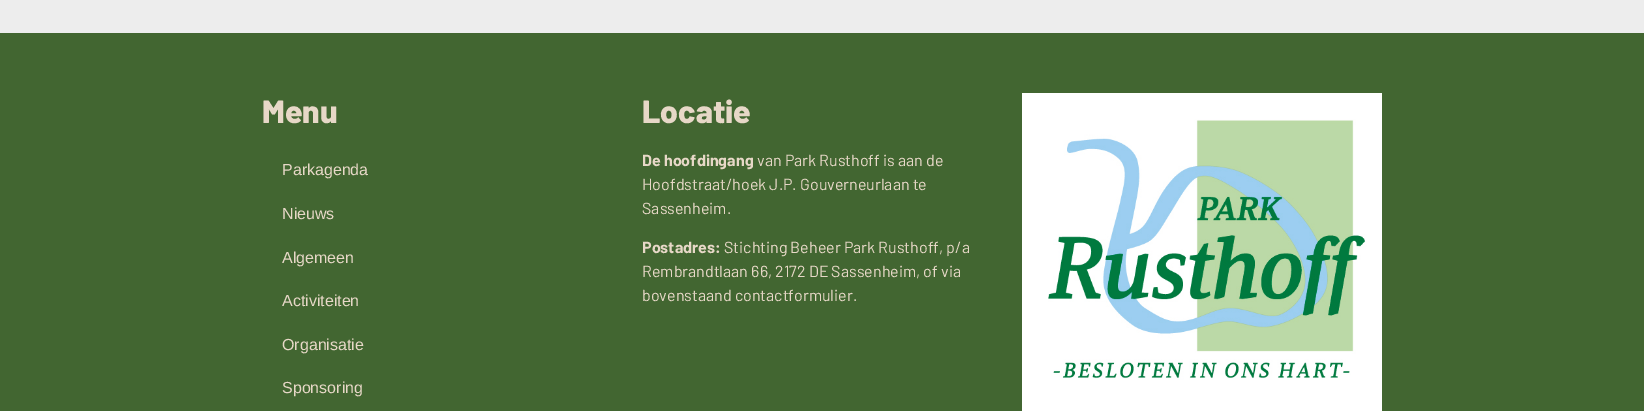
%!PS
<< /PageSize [1644 411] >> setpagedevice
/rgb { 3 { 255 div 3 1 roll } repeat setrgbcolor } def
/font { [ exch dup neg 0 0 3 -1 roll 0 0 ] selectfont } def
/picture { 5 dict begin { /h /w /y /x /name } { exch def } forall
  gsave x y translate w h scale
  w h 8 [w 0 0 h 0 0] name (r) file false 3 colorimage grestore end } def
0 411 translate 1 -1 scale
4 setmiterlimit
237 237 237 rgb
0 0 1644 411 rectfill
66 102 49 rgb
0 33 1644 378 rectfill
(img/1.rgb) 1022 93 360 318 picture
/Barlow-ExtraBold 32 font
231 216 199 rgb
262 123 moveto (Menu) show
/LiberationSans-Regular 16 font
[
  [(Parkagenda) 282 175]
  [(Nieuws) 282 219]
  [(Algemeen) 282 263]
  [(Activiteiten) 282 306]
  [(Organisatie) 282 350]
  [(Sponsoring) 282 393]
] { aload pop moveto show } forall
/Barlow-ExtraBold 32 font
642 123 moveto (Locatie) show
/Barlow-Bold 16 font
642 166 moveto (De hoofdingang) show
/Barlow-Regular 16 font
[
  [(van Park Rusthoff is aan de) 757 166]
  [(Hoofdstraat/hoek J.P. Gouverneurlaan te) 642 190]
  [(Sassenheim.) 642 214]
] { aload pop moveto show } forall
/Barlow-Bold 16 font
642 253 moveto (Postadres:) show
/Barlow-Regular 16 font
[
  [(Stichting Beheer Park Rusthoff, p/a) 724 253]
  [(Rembrandtlaan 66, 2172 DE Sassenheim, of via) 642 277]
  [(bovenstaand contactformulier.) 642 301]
] { aload pop moveto show } forall
showpage
